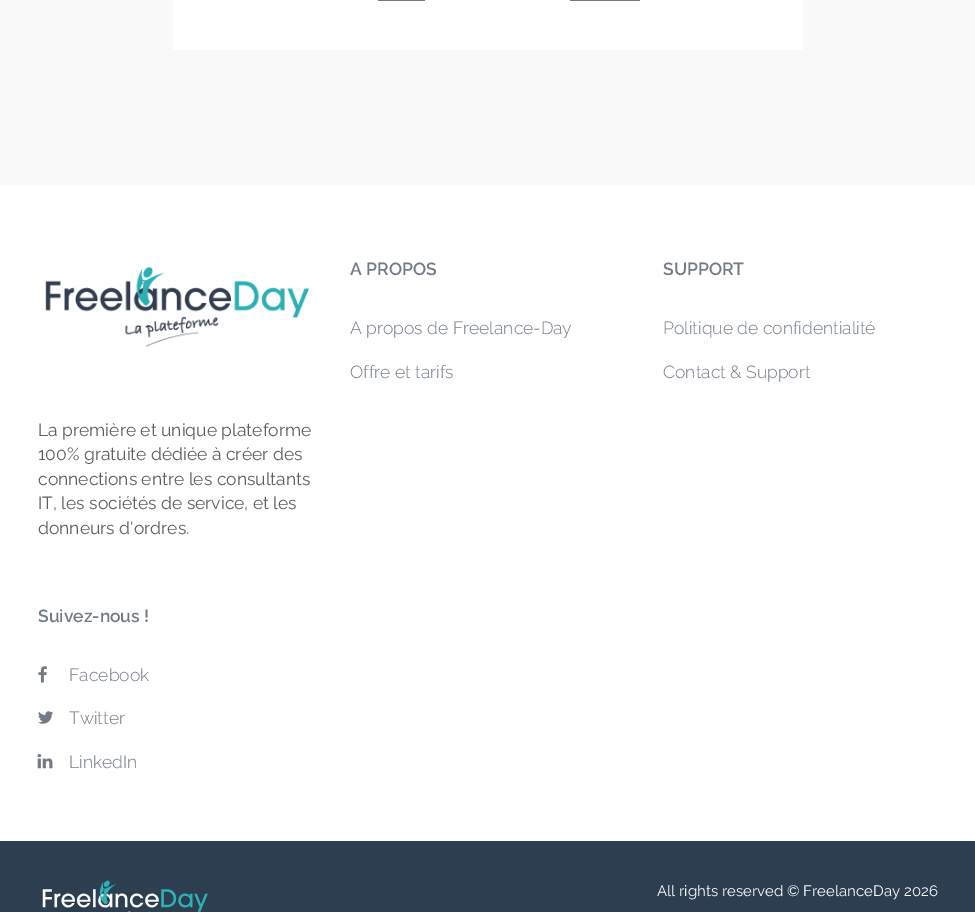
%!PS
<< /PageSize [975 912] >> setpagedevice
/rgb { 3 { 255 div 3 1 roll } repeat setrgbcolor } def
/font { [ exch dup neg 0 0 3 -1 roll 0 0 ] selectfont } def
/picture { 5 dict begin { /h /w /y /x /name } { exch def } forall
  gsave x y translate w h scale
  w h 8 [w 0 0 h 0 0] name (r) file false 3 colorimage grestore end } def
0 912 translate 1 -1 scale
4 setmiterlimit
249 249 249 rgb
0 0 975 912 rectfill
[
  [173 0 630 50 255 255 255]
  [378 0 47 1 115 124 133]
  [570 0 70 1 115 124 133]
  [0 185 975 656 255 255 255]
] { aload pop rgb rectfill } forall
(img/1.rgb) 45 266 265 81 picture
(img/2.rgb) 38 666 9 17 picture
(img/3.rgb) 38 711 16 13 picture
(img/4.rgb) 37 754 16 15 picture
44 62 80 rgb
0 841 975 71 rectfill
(img/5.rgb) 42 880 166 32 picture
/Raleway-SemiBold 17.5 font
115 124 133 rgb
350 275 moveto (A PROPOS) show
/Raleway-Light 17.5 font
350 334 moveto (A propos de Freelance-Day) show
350 378 moveto (Offre et tarifs) show
/Raleway-SemiBold 17.5 font
663 275 moveto (SUPPORT) show
/Raleway-Light 17.5 font
663 334 moveto (Politique de confidentialité) show
663 378 moveto (Contact & Support) show
/Raleway-Regular 17.5 font
93 95 94 rgb
[
  [(La première et unique plateforme) 38 436]
  [(100% gratuite dédiée à créer des) 38 460]
  [(connections entre les consultants) 38 485]
  [(IT, les sociétés de service, et les) 38 509]
  [(donneurs d'ordres.) 38 534]
] { aload pop moveto show } forall
/Raleway-SemiBold 17.5 font
115 124 133 rgb
38 622 moveto (Suivez-nous !) show
/Raleway-Light 17.5 font
[
  [(Facebook) 69 681]
  [(Twitter) 69 724]
  [(LinkedIn) 69 768]
] { aload pop moveto show } forall
/Raleway-Regular 15 font
255 255 255 rgb
657 896 moveto (All rights reserved © FreelanceDay 2026) show
showpage
